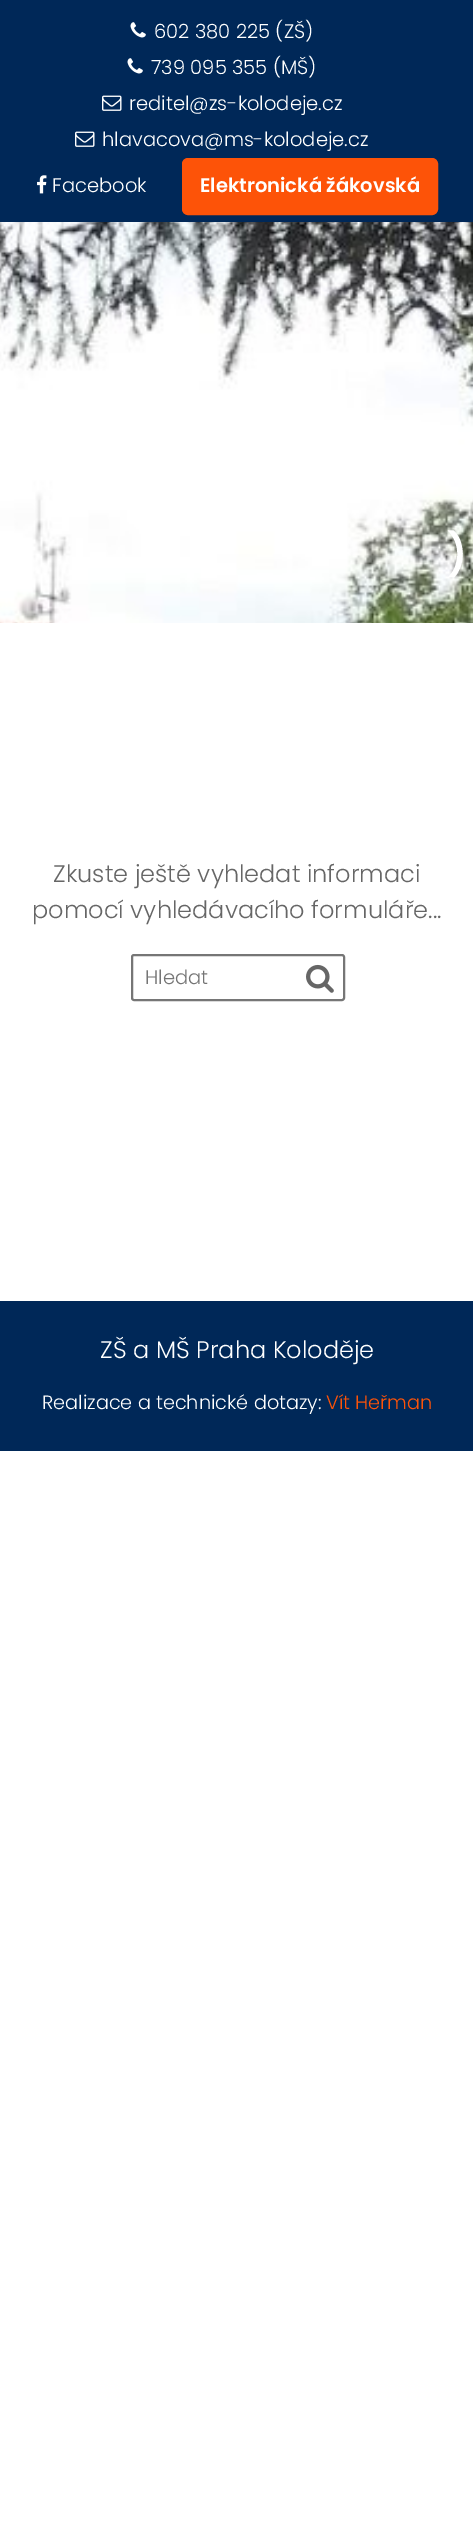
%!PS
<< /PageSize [473 2545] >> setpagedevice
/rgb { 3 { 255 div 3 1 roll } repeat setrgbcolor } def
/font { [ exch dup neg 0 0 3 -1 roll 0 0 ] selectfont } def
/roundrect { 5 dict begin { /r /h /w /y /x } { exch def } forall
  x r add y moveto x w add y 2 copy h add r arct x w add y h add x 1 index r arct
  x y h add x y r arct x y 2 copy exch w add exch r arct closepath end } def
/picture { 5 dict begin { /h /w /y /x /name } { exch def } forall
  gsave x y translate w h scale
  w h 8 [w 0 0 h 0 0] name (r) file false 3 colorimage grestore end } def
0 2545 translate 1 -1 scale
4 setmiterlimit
255 255 255 rgb
0 0 473 2545 rectfill
0 40 88 rgb
0 0 473 222 rectfill
(img/1.rgb) 130 22 16 16 picture
(img/1.rgb) 127 58 16 16 picture
(img/2.rgb) 102 95 20 16 picture
(img/2.rgb) 75 131 20 16 picture
(img/3.rgb) 37 175 10 19 picture
253 83 8 rgb
183.5 159.5 253 54 4.5 roundrect gsave fill grestore
3 setlinewidth
stroke
(img/4.rgb) 0 222 473 401 picture
118 118 118 rgb
2 setlinewidth
132 955 212 45 2 roundrect stroke
(img/5.rgb) 306 964 28 29 picture
0 40 88 rgb
0 1301 473 150 rectfill
/Poppins-Light 19.5 font
255 255 255 rgb
[
  [(602 380 225 \(ZŠ\)) 154 38]
  [(739 095 355 \(MŠ\)) 151 74]
  [(reditel@zs-kolodeje.cz) 129 110]
  [(hlavacova@ms-kolodeje.cz) 102 146]
  [(Facebook) 52 192]
] { aload pop moveto show } forall
/Poppins-SemiBold 19.5 font
200 192 moveto (Elektronická žákovská) show
/Poppins-SemiBold 42 font
447 569 moveto (\)) show
/Poppins-Light 24 font
102 102 102 rgb
53 882 moveto (Zkuste ještě vyhledat informaci) show
32 918 moveto (pomocí vyhledávacího formuláře...) show
/Poppins-Light 19.5 font
117 117 117 rgb
145 984 moveto (Hledat) show
/Poppins-Light 24 font
255 255 255 rgb
100 1358 moveto (ZŠ a MŠ Praha Koloděje) show
/Poppins-Light 19.25 font
42 1409 moveto (Realizace a technické dotazy:) show
253 83 8 rgb
326 1409 moveto (Vít Heřman) show
showpage
